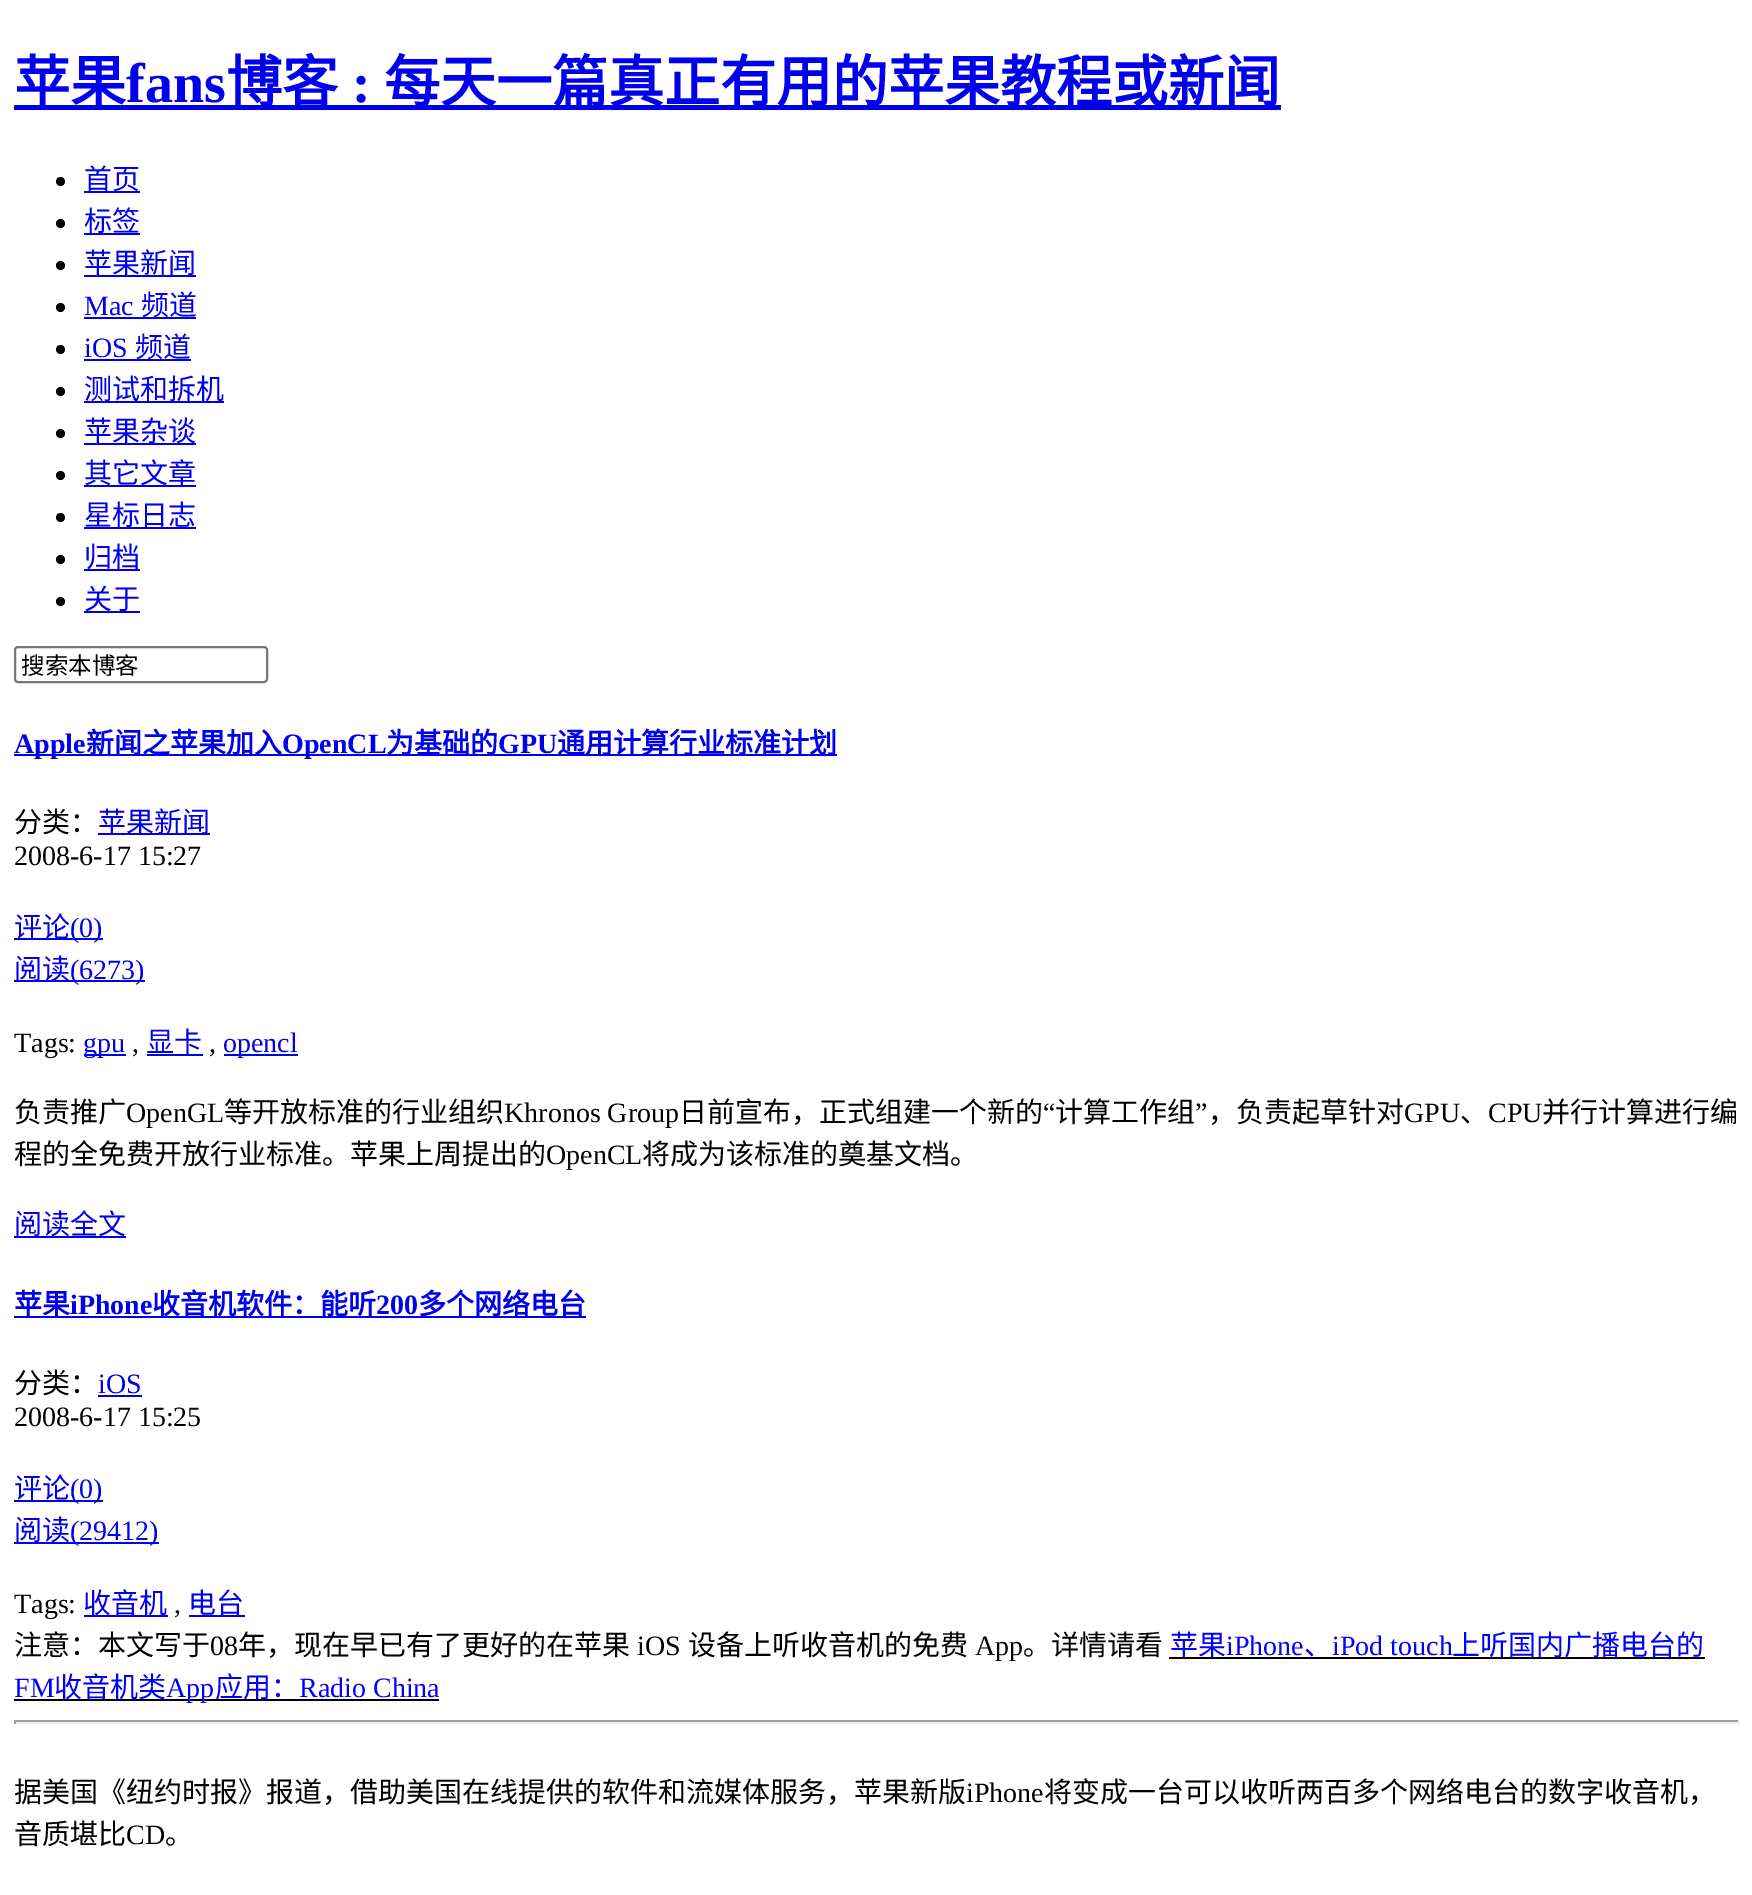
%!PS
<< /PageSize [1752 1895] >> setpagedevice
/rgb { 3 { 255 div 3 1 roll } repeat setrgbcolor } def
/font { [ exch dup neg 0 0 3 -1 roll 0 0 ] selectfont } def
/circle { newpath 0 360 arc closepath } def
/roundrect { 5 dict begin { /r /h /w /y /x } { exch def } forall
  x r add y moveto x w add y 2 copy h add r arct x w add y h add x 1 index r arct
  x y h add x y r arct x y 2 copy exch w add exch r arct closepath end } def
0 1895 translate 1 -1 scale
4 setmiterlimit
255 255 255 rgb
0 0 1752 1895 rectfill
0 0 238 rgb
14 105 1267 5 rectfill
0 0 0 rgb
60.5 181.5 4.5 circle fill
0 0 238 rgb
84 191 56 2 rectfill
0 0 0 rgb
60.5 223.5 4.5 circle fill
0 0 238 rgb
84 233 56 2 rectfill
0 0 0 rgb
60.5 265.5 4.5 circle fill
0 0 238 rgb
84 275 112 2 rectfill
0 0 0 rgb
60.5 307.5 4.5 circle fill
0 0 238 rgb
84 317 112 2 rectfill
0 0 0 rgb
60.5 349.5 4.5 circle fill
0 0 238 rgb
84 359 107 2 rectfill
0 0 0 rgb
60.5 391.5 4.5 circle fill
0 0 238 rgb
84 401 140 2 rectfill
0 0 0 rgb
60.5 433.5 4.5 circle fill
0 0 238 rgb
84 443 112 2 rectfill
0 0 0 rgb
60.5 475.5 4.5 circle fill
0 0 238 rgb
84 485 112 2 rectfill
0 0 0 rgb
60.5 517.5 4.5 circle fill
0 0 238 rgb
84 527 112 2 rectfill
0 0 0 rgb
60.5 559.5 4.5 circle fill
0 0 238 rgb
84 569 56 2 rectfill
0 0 0 rgb
60.5 601.5 4.5 circle fill
0 0 238 rgb
84 611 56 2 rectfill
118 118 118 rgb
2 setlinewidth
15 647 252 35 3 roundrect stroke
[
  [14 754 823 2 0 0 238]
  [98 833 112 2 0 0 238]
  [14 938 89 2 0 0 238]
  [14 980 131 2 0 0 238]
  [84 1054 42 2 0 0 238]
  [147 1054 56 2 0 0 238]
  [224 1054 74 2 0 0 238]
  [14 1236 112 2 0 0 238]
  [14 1316 572 2 0 0 238]
  [98 1395 44 2 0 0 238]
  [14 1500 89 2 0 0 238]
  [14 1542 145 2 0 0 238]
  [84 1615 84 2 0 0 238]
  [189 1615 56 2 0 0 238]
  [1169 1657 536 2 0 0 0]
  [14 1699 425 2 0 0 0]
  [14 1720 1726 2 159 159 159]
  [1738 1720 2 4 238 238 238]
  [14 1722 1726 2 238 238 238]
  [14 1720 2 4 159 159 159]
] { aload pop rgb rectfill } forall
/NotoSansCJKSC-Bold 56 font
0 0 238 rgb
14 102 moveto (苹果) show
/LiberationSerif-Bold 56 font
126 102 moveto (fans) show
/NotoSansCJKSC-Bold 56 font
226 102 moveto (博客) show
/LiberationSerif-Bold 56 font
352 102 moveto (:) show
/NotoSansCJKSC-Bold 56 font
384 102 moveto (每天一篇真正有用的苹果教程或新闻) show
/NotoSansCJKSC-Regular 28 font
[
  [(首页) 84 189]
  [(标签) 84 231]
  [(苹果新闻) 84 273]
] { aload pop moveto show } forall
/LiberationSerif-Regular 28 font
84 315 moveto (Mac) show
/NotoSansCJKSC-Regular 28 font
141 315 moveto (频道) show
/LiberationSerif-Regular 28 font
84 357 moveto (iOS) show
/NotoSansCJKSC-Regular 28 font
[
  [(频道) 135 357]
  [(测试和拆机) 84 399]
  [(苹果杂谈) 84 441]
  [(其它文章) 84 483]
  [(星标日志) 84 525]
  [(归档) 84 567]
  [(关于) 84 609]
] { aload pop moveto show } forall
/NotoSansCJKSC-Regular 23.5 font
0 0 0 rgb
21 674 moveto (搜索本博客) show
/LiberationSerif-Bold 28 font
0 0 238 rgb
14 753 moveto (Apple) show
/NotoSansCJKSC-Bold 28 font
86 753 moveto (新闻之苹果加入) show
/LiberationSerif-Bold 28 font
282 753 moveto (OpenCL) show
/NotoSansCJKSC-Bold 28 font
386 753 moveto (为基础的) show
/LiberationSerif-Bold 28 font
498 753 moveto (GPU) show
/NotoSansCJKSC-Bold 28 font
557 753 moveto (通用计算行业标准计划) show
/NotoSansCJKSC-Regular 28 font
0 0 0 rgb
14 832 moveto (分类：) show
0 0 238 rgb
98 832 moveto (苹果新闻) show
/LiberationSerif-Regular 28 font
0 0 0 rgb
14 865 moveto (2008-6-17 15:27) show
/NotoSansCJKSC-Regular 28 font
0 0 238 rgb
14 937 moveto (评论) show
/LiberationSerif-Regular 28 font
70 937 moveto (\(0\)) show
/NotoSansCJKSC-Regular 28 font
14 979 moveto (阅读) show
/LiberationSerif-Regular 28 font
70 979 moveto (\(6273\)) show
0 0 0 rgb
14 1052 moveto (Tags:) show
0 0 238 rgb
83 1052 moveto (gpu) show
0 0 0 rgb
132 1052 moveto (,) show
/NotoSansCJKSC-Regular 28 font
0 0 238 rgb
146 1052 moveto (显卡) show
/LiberationSerif-Regular 28 font
0 0 0 rgb
209 1052 moveto (,) show
0 0 238 rgb
223 1052 moveto (opencl) show
/NotoSansCJKSC-Regular 28 font
0 0 0 rgb
14 1122 moveto (负责推广) show
/LiberationSerif-Regular 28 font
126 1122 moveto (OpenGL) show
/NotoSansCJKSC-Regular 28 font
224 1122 moveto (等开放标准的行业组织) show
/LiberationSerif-Regular 28 font
504 1122 moveto (Khronos Group) show
/NotoSansCJKSC-Regular 28 font
679 1122 moveto (日前宣布，正式组建一个新的) show
/LiberationSerif-Regular 28 font
1043 1122 moveto (“) show
/NotoSansCJKSC-Regular 28 font
1055 1122 moveto (计算工作组) show
/LiberationSerif-Regular 28 font
1195 1122 moveto (”) show
/NotoSansCJKSC-Regular 28 font
1208 1122 moveto (，负责起草针对) show
/LiberationSerif-Regular 28 font
1404 1122 moveto (GPU) show
/NotoSansCJKSC-Regular 28 font
1460 1122 moveto (、) show
/LiberationSerif-Regular 28 font
1488 1122 moveto (CPU) show
/NotoSansCJKSC-Regular 28 font
1542 1122 moveto (并行计算进行编) show
14 1164 moveto (程的全免费开放行业标准。苹果上周提出的) show
/LiberationSerif-Regular 28 font
546 1164 moveto (OpenCL) show
/NotoSansCJKSC-Regular 28 font
642 1164 moveto (将成为该标准的奠基文档。) show
0 0 238 rgb
14 1234 moveto (阅读全文) show
/NotoSansCJKSC-Bold 28 font
14 1314 moveto (苹果) show
/LiberationSerif-Bold 28 font
70 1314 moveto (iPhone) show
/NotoSansCJKSC-Bold 28 font
152 1314 moveto (收音机软件：能听) show
/LiberationSerif-Bold 28 font
376 1314 moveto (200) show
/NotoSansCJKSC-Bold 28 font
418 1314 moveto (多个网络电台) show
/NotoSansCJKSC-Regular 28 font
0 0 0 rgb
14 1393 moveto (分类：) show
/LiberationSerif-Regular 28 font
0 0 238 rgb
98 1393 moveto (iOS) show
0 0 0 rgb
14 1426 moveto (2008-6-17 15:25) show
/NotoSansCJKSC-Regular 28 font
0 0 238 rgb
14 1498 moveto (评论) show
/LiberationSerif-Regular 28 font
70 1498 moveto (\(0\)) show
/NotoSansCJKSC-Regular 28 font
14 1540 moveto (阅读) show
/LiberationSerif-Regular 28 font
70 1540 moveto (\(29412\)) show
0 0 0 rgb
14 1613 moveto (Tags:) show
/NotoSansCJKSC-Regular 28 font
0 0 238 rgb
83 1613 moveto (收音机) show
/LiberationSerif-Regular 28 font
0 0 0 rgb
174 1613 moveto (,) show
/NotoSansCJKSC-Regular 28 font
0 0 238 rgb
188 1613 moveto (电台) show
0 0 0 rgb
14 1655 moveto (注意：本文写于) show
/LiberationSerif-Regular 28 font
210 1655 moveto (08) show
/NotoSansCJKSC-Regular 28 font
238 1655 moveto (年，现在早已有了更好的在苹果) show
/LiberationSerif-Regular 28 font
637 1655 moveto (iOS) show
/NotoSansCJKSC-Regular 28 font
688 1655 moveto (设备上听收音机的免费) show
/LiberationSerif-Regular 28 font
975 1655 moveto (App) show
/NotoSansCJKSC-Regular 28 font
1023 1655 moveto (。详情请看) show
0 0 255 rgb
1170 1655 moveto (苹果) show
/LiberationSerif-Regular 28 font
1226 1655 moveto (iPhone) show
/NotoSansCJKSC-Regular 28 font
1304 1655 moveto (、) show
/LiberationSerif-Regular 28 font
1332 1655 moveto (iPod touch) show
/NotoSansCJKSC-Regular 28 font
1452 1655 moveto (上听国内广播电台的) show
/LiberationSerif-Regular 28 font
14 1697 moveto (FM) show
/NotoSansCJKSC-Regular 28 font
54 1697 moveto (收音机类) show
/LiberationSerif-Regular 28 font
166 1697 moveto (App) show
/NotoSansCJKSC-Regular 28 font
215 1697 moveto (应用：) show
/LiberationSerif-Regular 28 font
299 1697 moveto (Radio China) show
/NotoSansCJKSC-Regular 28 font
0 0 0 rgb
14 1802 moveto (据美国《纽约时报》报道，借助美国在线提供的软件和流媒体服务，苹果新版) show
/LiberationSerif-Regular 28 font
966 1802 moveto (iPhone) show
/NotoSansCJKSC-Regular 28 font
1044 1802 moveto (将变成一台可以收听两百多个网络电台的数字收音机，) show
14 1844 moveto (音质堪比) show
/LiberationSerif-Regular 28 font
126 1844 moveto (CD) show
/NotoSansCJKSC-Regular 28 font
165 1844 moveto (。) show
showpage
